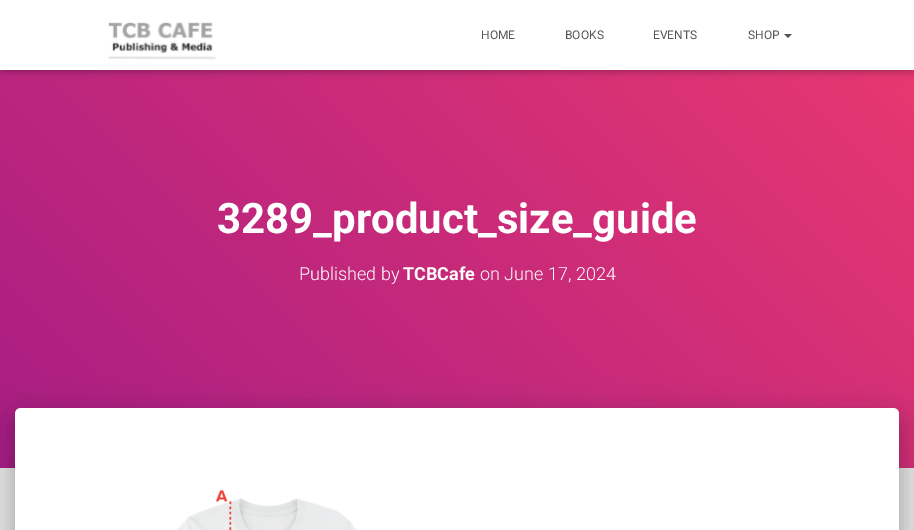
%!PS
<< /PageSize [914 530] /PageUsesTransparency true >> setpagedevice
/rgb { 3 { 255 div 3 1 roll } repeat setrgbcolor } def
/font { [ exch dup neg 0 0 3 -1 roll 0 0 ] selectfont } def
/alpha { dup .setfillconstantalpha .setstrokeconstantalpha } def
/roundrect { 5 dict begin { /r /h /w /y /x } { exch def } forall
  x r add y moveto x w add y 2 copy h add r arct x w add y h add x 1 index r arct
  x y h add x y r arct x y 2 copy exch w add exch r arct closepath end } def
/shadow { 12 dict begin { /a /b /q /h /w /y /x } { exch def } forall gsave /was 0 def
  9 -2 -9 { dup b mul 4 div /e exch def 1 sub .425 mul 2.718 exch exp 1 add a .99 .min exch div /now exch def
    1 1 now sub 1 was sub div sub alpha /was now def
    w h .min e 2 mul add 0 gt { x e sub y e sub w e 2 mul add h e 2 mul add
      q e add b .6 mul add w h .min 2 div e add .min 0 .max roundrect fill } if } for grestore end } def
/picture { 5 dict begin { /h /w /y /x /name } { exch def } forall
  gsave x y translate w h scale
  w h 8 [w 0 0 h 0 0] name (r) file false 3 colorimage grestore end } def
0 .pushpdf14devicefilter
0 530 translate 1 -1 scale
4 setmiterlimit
229 229 229 rgb
0 0 914 530 rectfill
gsave 0 70 moveto 914 70 lineto 914 468 lineto 0 468 lineto closepath clip newpath
<< /ShadingType 2 /ColorSpace /DeviceRGB /Coords [112 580 803 -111] /Extend [true true] /Function << /FunctionType 2 /Domain [0 1] /C0 [0.659 0.114 0.518] /C1 [0.918 0.224 0.435] /N 1 >> >> shfill grestore
0 0 0 rgb
2 6 910 66 0 2.5 0.1 shadow
0 1 914 70 0 5 0.12 shadow
6 7 902 58 0 5 0.42 shadow
255 255 255 rgb
0 0 914 70 rectfill
(img/1.rgb) 108 22 108 38 picture
85 85 85 rgb
784 34 moveto 792 34 lineto 788 38 lineto closepath fill
0 0 0 rgb
20 421 874 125 1 5 0.2 shadow
10 409 894 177 11 15 0.12 shadow
13 422 888 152 8 12 0.14 shadow
255 255 255 rgb
21 408 moveto 893 408 lineto 896.5 408 899 410.5 899 414 curveto 899 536 lineto 15 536 lineto 15 414 lineto 15 410.5 17.5 408 21 408 curveto closepath fill
(img/2.rgb) 176 490 181 40 picture
/Roboto-Regular 12 font
85 85 85 rgb
[
  [(HOME) 481 39]
  [(BOOKS) 565 39]
  [(EVENTS) 653 39]
  [(SHOP) 748 39]
] { aload pop moveto show } forall
/Roboto-Bold 42 font
255 255 255 rgb
217 233 moveto (3289_product_size_guide) show
/Roboto-Light 18 font
299 280 moveto (Published by) show
/Roboto-Bold 18 font
403 280 moveto (TCBCafe) show
/Roboto-Light 18 font
480 280 moveto (on June 17, 2024) show
.poppdf14devicefilter showpage
